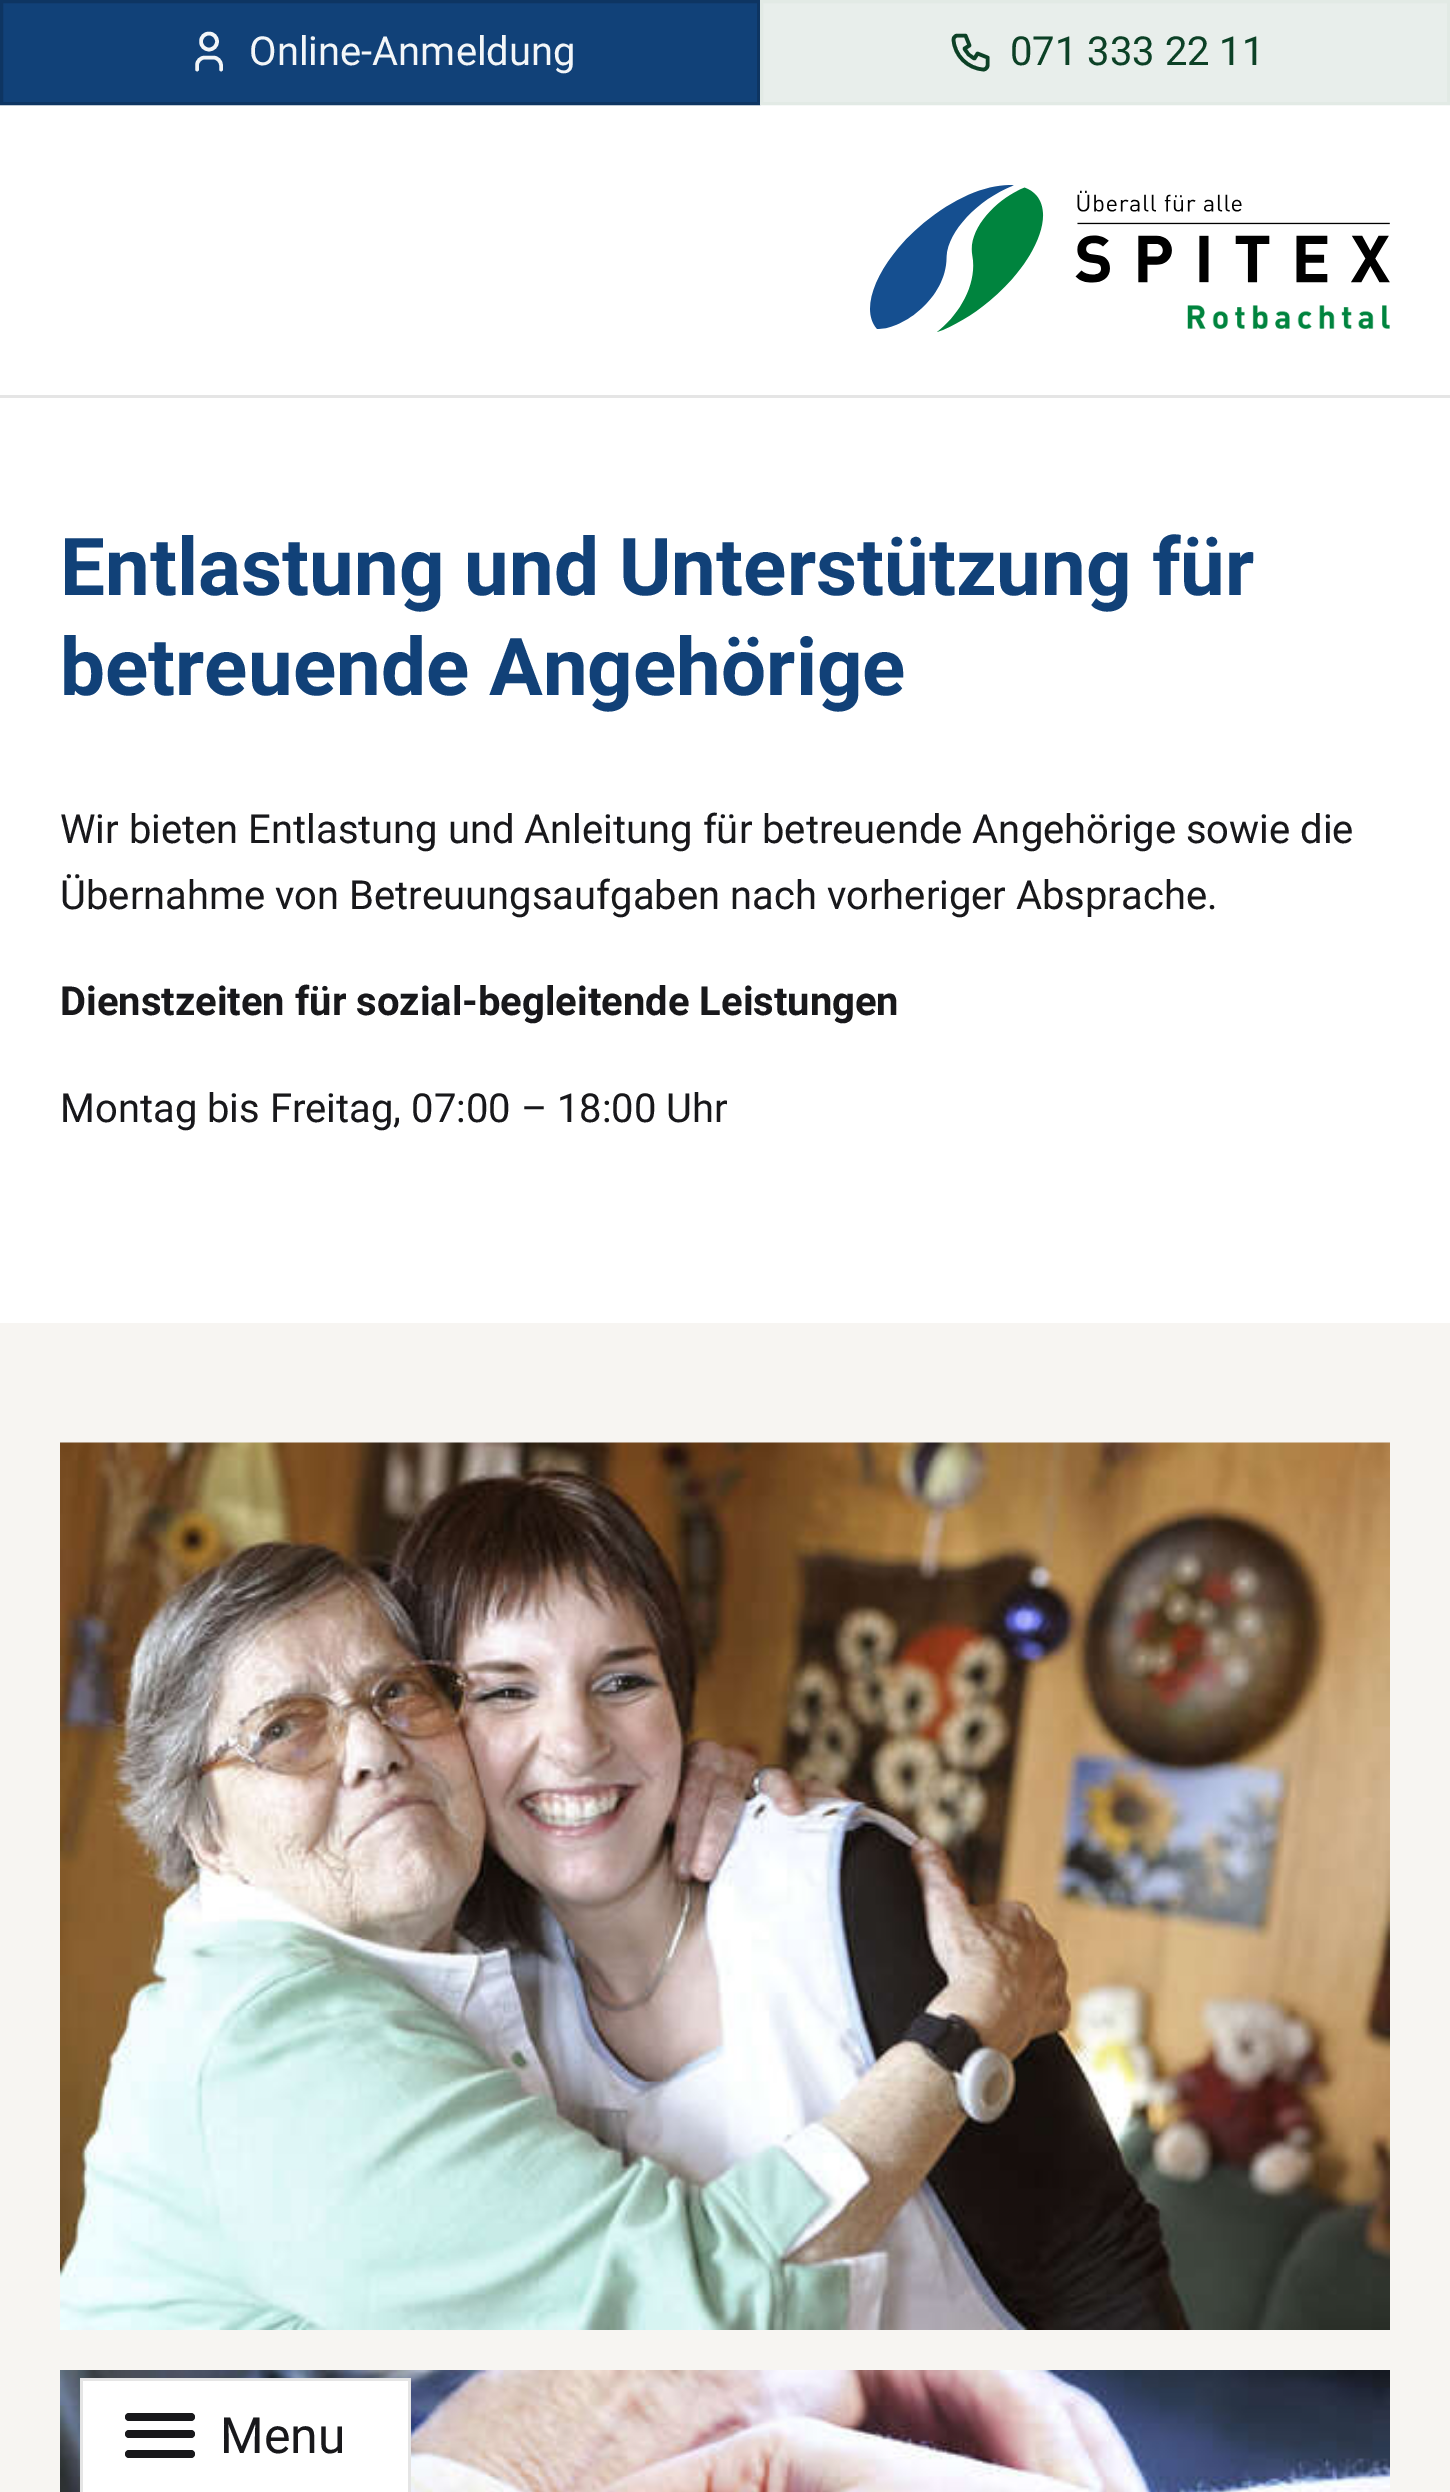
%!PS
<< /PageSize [1450 2492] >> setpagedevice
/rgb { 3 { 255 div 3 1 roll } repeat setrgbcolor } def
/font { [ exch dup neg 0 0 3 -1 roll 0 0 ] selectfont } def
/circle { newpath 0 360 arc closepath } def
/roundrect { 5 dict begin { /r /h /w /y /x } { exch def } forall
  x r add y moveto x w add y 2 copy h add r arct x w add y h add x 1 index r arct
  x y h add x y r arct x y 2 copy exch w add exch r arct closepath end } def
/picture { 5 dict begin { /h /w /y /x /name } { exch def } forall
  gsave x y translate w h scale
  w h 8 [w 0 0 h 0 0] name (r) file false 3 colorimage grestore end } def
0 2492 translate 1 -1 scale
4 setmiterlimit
255 255 255 rgb
0 0 1450 2492 rectfill
229 229 229 rgb
0 395 1450 3 rectfill
17 65 120 rgb
1.5 1.5 moveto 758.5 1.5 lineto 758.5 103.5 lineto 1.5 103.5 lineto closepath gsave fill grestore
14 53 98 rgb
3 setlinewidth
stroke
243 246 248 rgb
3.6 setlinewidth
209 41.5 8 circle stroke
1 setlinecap
1 setlinejoin
197 69.5 moveto 197 65.5 lineto 197 61 200.5 57.5 205 57.5 curveto 213 57.5 lineto 217.5 57.5 221 61 221 65.5 curveto 221 69.5 lineto stroke
232 238 235 rgb
761.5 1.5 moveto 1448.5 1.5 lineto 1448.5 103.5 lineto 761.5 103.5 lineto closepath gsave fill grestore
226 234 229 rgb
3 setlinewidth
0 setlinecap
0 setlinejoin
stroke
12 65 38 rgb
3.6 setlinewidth
1 setlinecap
1 setlinejoin
957.5 35.5 moveto 965.5 35.5 lineto 969.5 45.5 lineto 964.5 48.5 lineto 966.5 53 970 56.5 974.5 58.5 curveto 977.5 53.5 lineto 987.5 57.5 lineto 987.5 65.5 lineto 987.5 67.5 985.5 69.5 983.5 69.5 curveto 967.5 68.5 954.5 55.5 953.5 39.5 curveto 953.5 37.5 955.5 35.5 957.5 35.5 curveto stroke
(img/1.rgb) 870 185 520 147 picture
247 245 242 rgb
0 1323 1450 1169 rectfill
(img/3.rgb) 60 2370 1330 122 picture
[
  [83 2381 325 111 255 255 255]
  [80 2378 330 3 229 229 229]
  [408 2378 3 114 229 229 229]
  [80 2378 3 114 229 229 229]
] { aload pop rgb rectfill } forall
24 24 27 rgb
125 2430 70 8 4 roundrect fill
125 2413 70 8 4 roundrect fill
125 2450 70 8 4 roundrect fill
(img/2.rgb) 60 1442 1330 888 picture
/Roboto-Regular 40 font
243 246 248 rgb
249 65 moveto (Online-Anmeldung) show
12 65 38 rgb
1010 65 moveto (071 333 22 11) show
/Roboto-Regular 50 font
24 24 27 rgb
220 2453 moveto (Menu) show
/Roboto-Bold 80 font
17 65 120 rgb
60 595 moveto (Entlastung und Unterstützung für) show
60 695 moveto (betreuende Angehörige) show
/Roboto-Regular 40 font
24 24 27 rgb
60 843 moveto (Wir bieten Entlastung und Anleitung für betreuende Angehörige sowie die) show
60 909 moveto (Übernahme von Betreuungsaufgaben nach vorheriger Absprache.) show
/Roboto-Bold 40 font
60 1015 moveto (Dienstzeiten für sozial-begleitende Leistungen) show
/Roboto-Regular 40 font
60 1122 moveto (Montag bis Freitag, 07:00 – 18:00 Uhr) show
showpage
